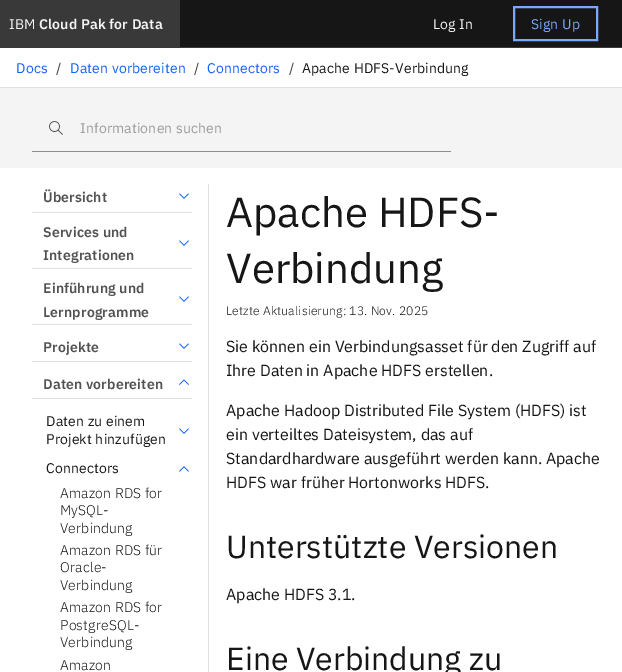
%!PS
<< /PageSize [622 672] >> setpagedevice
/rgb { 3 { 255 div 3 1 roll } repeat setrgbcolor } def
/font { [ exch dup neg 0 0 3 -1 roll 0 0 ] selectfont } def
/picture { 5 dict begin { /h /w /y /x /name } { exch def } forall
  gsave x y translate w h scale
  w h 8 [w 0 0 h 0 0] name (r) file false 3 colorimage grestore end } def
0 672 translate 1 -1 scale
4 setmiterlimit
255 255 255 rgb
0 0 622 672 rectfill
[
  [180 0 442 47 22 22 22]
  [0 47 622 1 57 57 57]
  [0 0 180 47 57 57 57]
] { aload pop rgb rectfill } forall
120 169 255 rgb
2 setlinewidth
514 7 83 33 rectstroke
224 224 224 rgb
0 87 622 1 rectfill
244 244 244 rgb
0 88 622 80 rectfill
(img/1.rgb) 49 121 14 14 picture
[
  [32 151 419 1 141 141 141]
  [208 184 1 488 224 224 224]
  [32 212 160 1 224 224 224]
] { aload pop rgb rectfill } forall
(img/2.rgb) 179 193 10 6 picture
32 268 160 1 rectfill
(img/2.rgb) 179 240 10 6 picture
32 324 160 1 rectfill
(img/2.rgb) 179 296 10 6 picture
32 361 160 1 rectfill
(img/2.rgb) 179 343 10 6 picture
32 398 160 1 rectfill
(img/3.rgb) 179 379 10 6 picture
(img/2.rgb) 179 428 10 6 picture
(img/4.rgb) 179 466 10 6 picture
/IBMPlexSans-Regular 14 font
244 244 244 rgb
9 29 moveto 0.15 0 (IBM) ashow
/IBMPlexSans-SemiBold 14 font
39 29 moveto 0.15 0 (Cloud Pak for Data) ashow
/IBMPlexSans-Regular 14 font
433 29 moveto 0.15 0 (Log In) ashow
120 169 255 rgb
531 29 moveto 0.15 0 (Sign Up) ashow
15 98 254 rgb
16 73 moveto 0.15 0 (Docs) ashow
57 57 57 rgb
56 73 moveto 0.15 0 (/) ashow
15 98 254 rgb
70 73 moveto 0.15 0 (Daten vorbereiten) ashow
57 57 57 rgb
194 73 moveto 0.15 0 (/) ashow
15 98 254 rgb
207 73 moveto 0.15 0 (Connectors) ashow
57 57 57 rgb
289 73 moveto 0.15 0 (/) ashow
22 22 22 rgb
302 73 moveto 0.15 0 (Apache HDFS-Verbindung) ashow
156 156 156 rgb
80 133 moveto 0.15 0 (Informationen suchen) ashow
/IBMPlexSans-SemiBold 14 font
82 82 82 rgb
43 202 moveto 0.15 0 (Übersicht) ashow
43 237 moveto 0.15 0 (Services und) ashow
43 260 moveto 0.15 0 (Integrationen) ashow
43 293 moveto 0.15 0 (Einführung und) ashow
43 317 moveto 0.15 0 (Lernprogramme) ashow
43 352 moveto 0.15 0 (Projekte) ashow
43 389 moveto 0.15 0 (Daten vorbereiten) ashow
/IBMPlexSans-Regular 14 font
22 22 22 rgb
46 426 moveto 0.15 0 (Daten zu einem) ashow
46 444 moveto 0.15 0 (Projekt hinzufügen) ashow
46 473 moveto 0.15 0 (Connectors) ashow
/IBMPlexSans-Light 14 font
60 498 moveto 0.15 0 (Amazon RDS for) ashow
60 515 moveto 0.15 0 (MySQL-) ashow
60 533 moveto 0.15 0 (Verbindung) ashow
60 555 moveto 0.15 0 (Amazon RDS für) ashow
60 572 moveto 0.15 0 (Oracle-) ashow
60 590 moveto 0.15 0 (Verbindung) ashow
60 612 moveto 0.15 0 (Amazon RDS for) ashow
60 630 moveto 0.15 0 (PostgreSQL-) ashow
60 647 moveto 0.15 0 (Verbindung) ashow
60 670 moveto 0.15 0 (Amazon) ashow
/IBMPlexSans-Regular 42 font
226 227 moveto (Apache HDFS-) show
226 283 moveto (Verbindung) show
/IBMPlexSans-Light 12.25 font
226 315 moveto 0.15 0 (Letzte Aktualisierung: 13. Nov. 2025) ashow
/IBMPlexSans-Regular 16 font
[
  [(Sie können ein Verbindungsasset für den Zugriff auf) 226 352]
  [(Ihre Daten in Apache HDFS erstellen.) 226 376]
  [(Apache Hadoop Distributed File System \(HDFS\) ist) 226 416]
  [(ein verteiltes Dateisystem, das auf) 226 440]
  [(Standardhardware ausgeführt werden kann. Apache) 226 464]
  [(HDFS war früher Hortonworks HDFS.) 226 488]
] { aload pop moveto show } forall
/IBMPlexSans-Regular 32 font
226 558 moveto (Unterstützte Versionen) show
/IBMPlexSans-Regular 16 font
226 600 moveto (Apache HDFS 3.1.) show
/IBMPlexSans-Regular 32 font
226 670 moveto (Eine Verbindung zu) show
showpage
